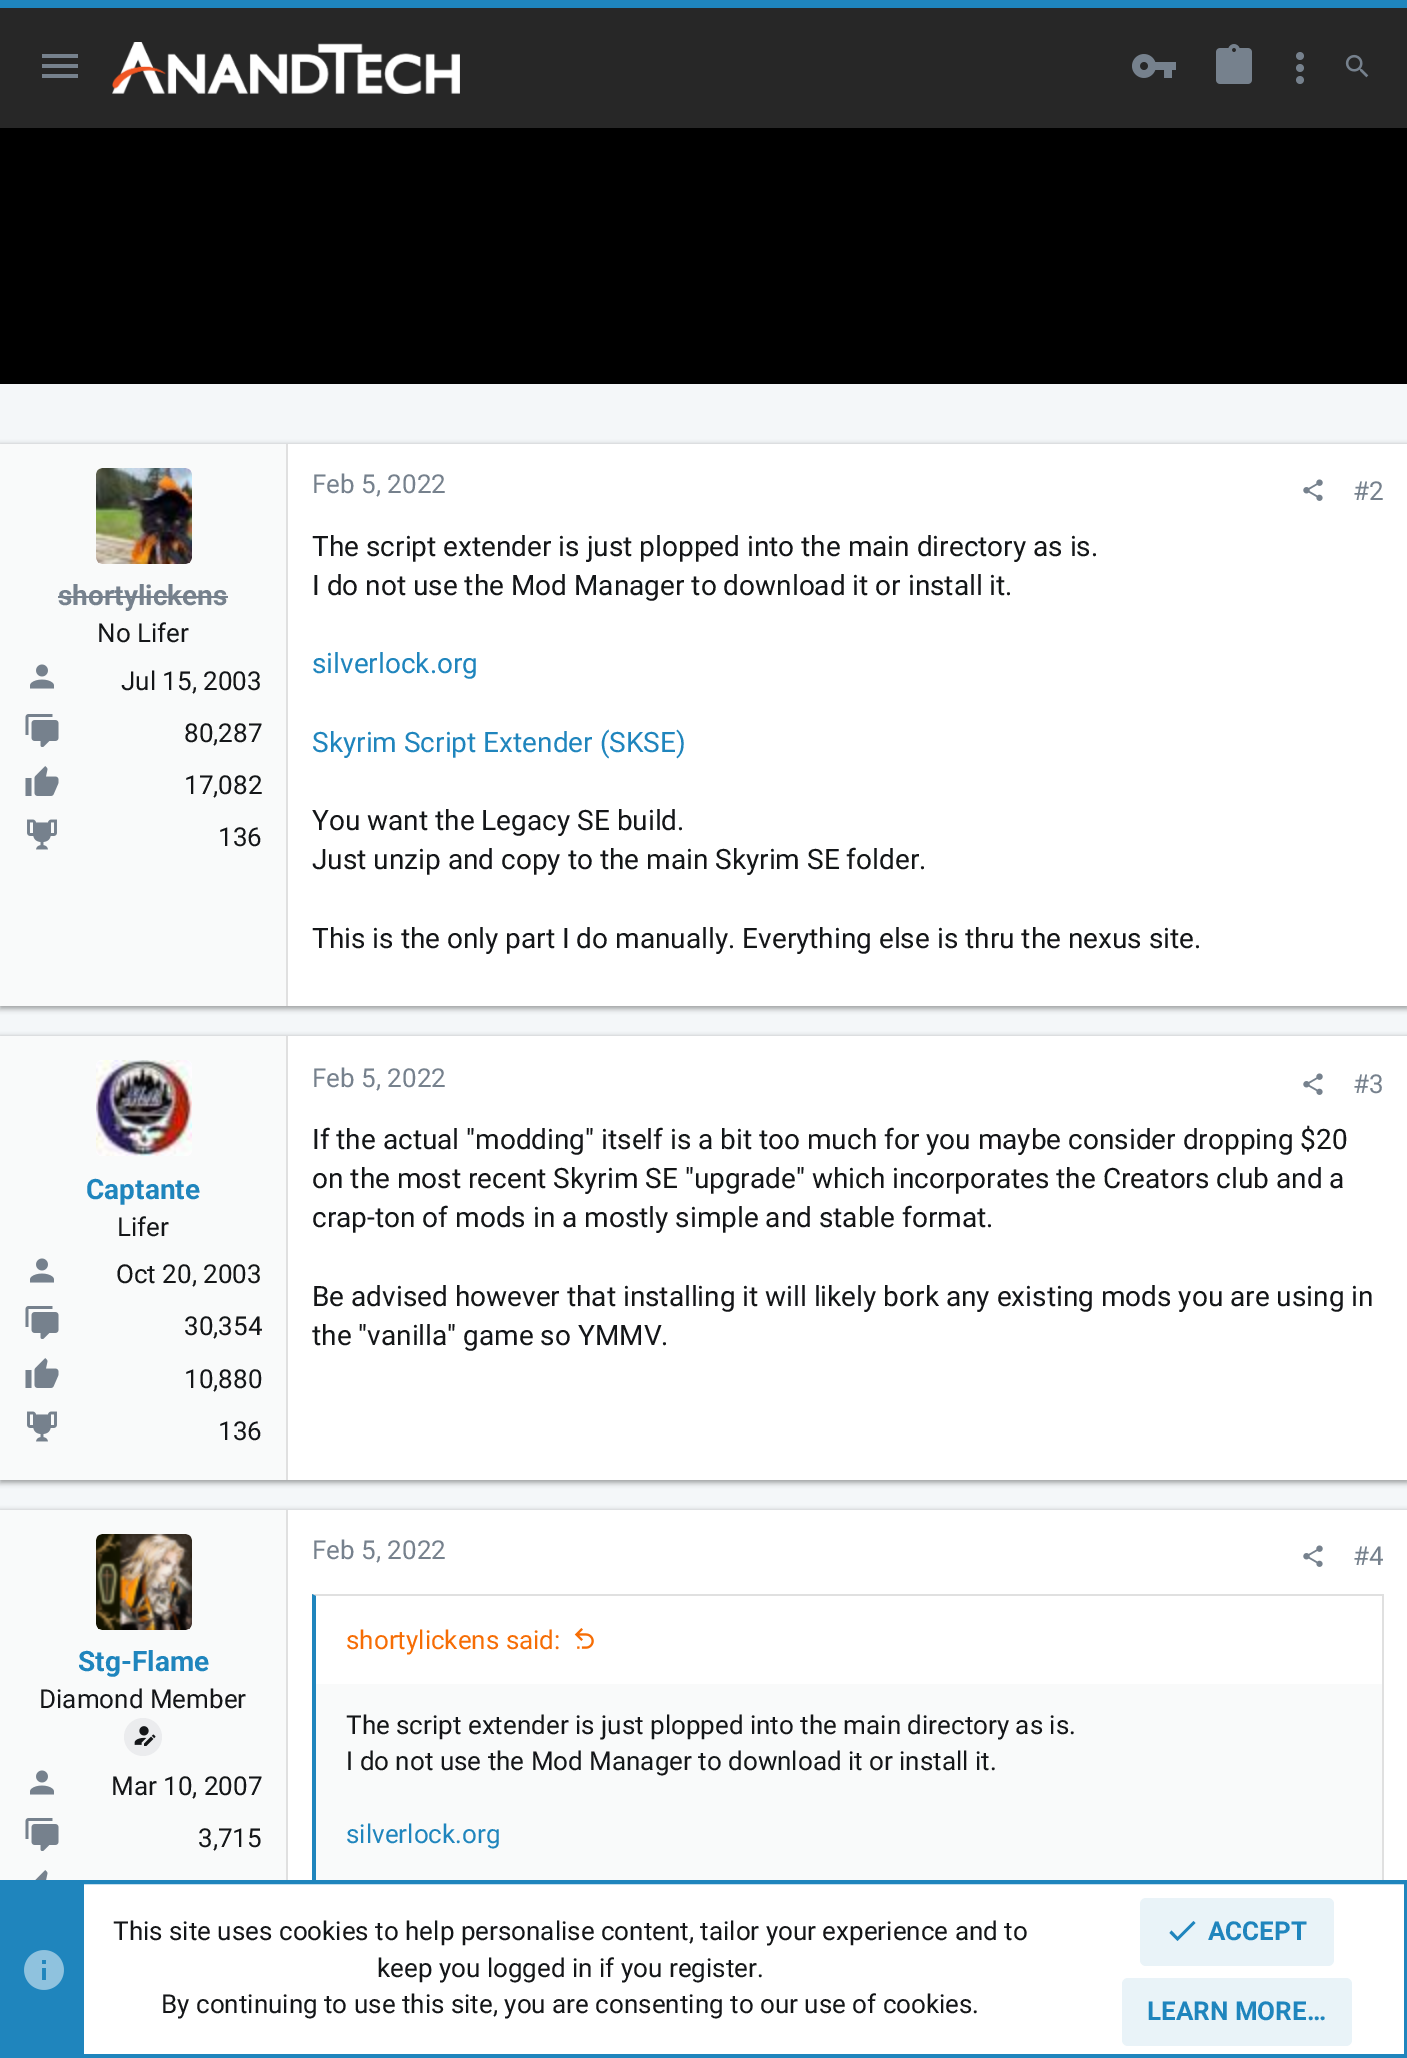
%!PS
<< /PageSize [1407 2058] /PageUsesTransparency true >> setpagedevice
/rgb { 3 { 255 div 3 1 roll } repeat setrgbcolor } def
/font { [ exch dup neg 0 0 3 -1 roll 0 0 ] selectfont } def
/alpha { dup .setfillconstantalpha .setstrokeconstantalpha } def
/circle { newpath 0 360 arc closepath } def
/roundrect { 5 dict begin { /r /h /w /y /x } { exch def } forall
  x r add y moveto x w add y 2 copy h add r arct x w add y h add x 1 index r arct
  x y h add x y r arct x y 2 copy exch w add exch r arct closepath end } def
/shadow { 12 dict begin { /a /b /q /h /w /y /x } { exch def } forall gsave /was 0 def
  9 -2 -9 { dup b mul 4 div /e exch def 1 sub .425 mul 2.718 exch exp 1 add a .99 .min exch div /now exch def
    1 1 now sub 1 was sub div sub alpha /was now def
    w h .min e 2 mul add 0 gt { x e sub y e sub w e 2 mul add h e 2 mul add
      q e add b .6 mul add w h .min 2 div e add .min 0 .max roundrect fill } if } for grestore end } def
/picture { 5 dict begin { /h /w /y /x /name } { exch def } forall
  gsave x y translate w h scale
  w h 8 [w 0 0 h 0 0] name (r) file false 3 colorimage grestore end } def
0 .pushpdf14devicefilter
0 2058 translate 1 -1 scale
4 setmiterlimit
244 247 249 rgb
0 0 1407 2058 rectfill
39 39 39 rgb
0 8 1407 120 rectfill
31 133 189 rgb
0 0 1407 8 rectfill
118 129 141 rgb
42 54 moveto 78 54 lineto 78 58 lineto 42 58 lineto closepath 42 64 moveto 78 64 lineto 78 68 lineto 42 68 lineto closepath 42 74 moveto 78 74 lineto 78 78 lineto 42 78 lineto closepath fill
(img/1.rgb) 112 42 348 52 picture
(img/2.rgb) 1132 54 44 24 picture
(img/3.rgb) 1216 44 36 40 picture
(img/4.rgb) 1296 52 8 32 picture
(img/5.rgb) 1345 54 24 24 picture
0 0 0 rgb
0 128 1407 256 rectfill
0 446 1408 562 0 3 0.2 shadow
0 448 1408 562 0 2 0.12 shadow
0 444 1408 562 0 2 0.14 shadow
[
  [288 444 1119 562 255 255 255]
  [0 444 286 562 249 250 250]
  [286 444 2 562 224 224 224]
] { aload pop rgb rectfill } forall
255 255 255 rgb
96 468 96 96 6 roundrect fill
(img/6.rgb) 96 468 96 96 picture
118 129 141 rgb
58 596 170 2 rectfill
(img/7.rgb) 30 664 24 25 picture
(img/8.rgb) 25 714 34 33 picture
(img/9.rgb) 25 766 34 30 picture
(img/10.rgb) 27 819 30 31 picture
(img/11.rgb) 1303 479 20 22 picture
0 0 0 rgb
0 1038 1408 444 0 3 0.2 shadow
0 1040 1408 444 0 2 0.12 shadow
0 1036 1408 444 0 2 0.14 shadow
[
  [288 1036 1119 444 255 255 255]
  [0 1036 286 444 249 250 250]
  [286 1036 2 444 224 224 224]
] { aload pop rgb rectfill } forall
255 255 255 rgb
96 1060 96 96 6 roundrect fill
(img/12.rgb) 96 1060 96 96 picture
(img/7.rgb) 30 1258 24 25 picture
(img/8.rgb) 25 1306 34 33 picture
(img/9.rgb) 25 1358 34 30 picture
(img/10.rgb) 27 1411 30 31 picture
(img/11.rgb) 1303 1073 20 22 picture
0 0 0 rgb
0 1512 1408 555 0 3 0.2 shadow
0 1510 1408 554 0 2 0.14 shadow
[
  [288 1510 1119 370 255 255 255]
  [0 1510 286 370 249 250 250]
  [286 1510 2 370 224 224 224]
] { aload pop rgb rectfill } forall
255 255 255 rgb
96 1534 96 96 6 roundrect fill
(img/13.rgb) 96 1534 96 96 picture
235 236 238 rgb
143 1737 19 circle fill
(img/14.rgb) 134 1726 22 20 picture
(img/7.rgb) 30 1770 24 25 picture
(img/8.rgb) 25 1818 34 33 picture
(img/15.rgb) 35 1870 13 10 picture
(img/11.rgb) 1303 1545 20 22 picture
249 250 250 rgb
316 1684 1066 196 rectfill
224 224 224 rgb
312 1594 moveto 1384 1594 lineto 1382 1596 lineto 316 1596 lineto closepath fill
1382 1594 2 286 rectfill
31 133 189 rgb
312 2034 moveto 312 1594 lineto 316 1596 lineto 316 2032 lineto closepath fill
(img/16.rgb) 574 1628 20 21 picture
255 255 255 rgb
84 1884 1320 170 rectfill
31 133 189 rgb
4 setlinewidth
2 1882 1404 174 rectstroke
4 1884 80 170 rectfill
(img/17.rgb) 24 1950 40 40 picture
233 243 248 rgb
1140 1898 194 68 6 roundrect fill
31 133 189 rgb
1195.5 1923 moveto 1177.5 1941 lineto 1169.5 1933 lineto 1171.5 1930.5 lineto 1177.5 1937 lineto 1193.5 1921 lineto closepath fill
233 243 248 rgb
1122 1978 230 68 6 roundrect fill
/Roboto-Bold 28 font
118 129 141 rgb
58 605 moveto (shortylickens) show
/Roboto-Regular 26 font
20 22 24 rgb
[
  [(No Lifer) 97 642]
  [(Jul 15, 2003) 121 690]
  [(80,287) 184 742]
  [(17,082) 184 794]
  [(136) 218 846]
] { aload pop moveto show } forall
118 129 141 rgb
312 493 moveto (Feb 5, 2022) show
1353 500 moveto (#2) show
/Roboto-Regular 28 font
20 22 24 rgb
312 556 moveto (The script extender is just plopped into the main directory as is.) show
312 595 moveto (I do not use the Mod Manager to download it or install it.) show
31 133 189 rgb
312 673 moveto (silverlock.org) show
312 752 moveto (Skyrim Script Extender \(SKSE\)) show
20 22 24 rgb
[
  [(You want the Legacy SE build.) 312 830]
  [(Just unzip and copy to the main Skyrim SE folder.) 312 869]
  [(This is the only part I do manually. Everything else is thru the nexus site.) 312 948]
] { aload pop moveto show } forall
/Roboto-Bold 28 font
31 133 189 rgb
86 1199 moveto (Captante) show
/Roboto-Regular 26 font
20 22 24 rgb
[
  [(Lifer) 117 1236]
  [(Oct 20, 2003) 116 1283]
  [(30,354) 184 1335]
  [(10,880) 184 1388]
  [(136) 218 1440]
] { aload pop moveto show } forall
118 129 141 rgb
312 1087 moveto (Feb 5, 2022) show
1353 1093 moveto (#3) show
/Roboto-Regular 28 font
20 22 24 rgb
[
  [(If the actual "modding" itself is a bit too much for you maybe consider dropping $20) 312 1149]
  [(on the most recent Skyrim SE "upgrade" which incorporates the Creators club and a) 312 1188]
  [(crap-ton of mods in a mostly simple and stable format.) 312 1227]
  [(Be advised however that installing it will likely bork any existing mods you are using in) 312 1306]
  [(the "vanilla" game so YMMV.) 312 1345]
] { aload pop moveto show } forall
/Roboto-Bold 28 font
31 133 189 rgb
78 1671 moveto (Stg-Flame) show
/Roboto-Regular 26 font
20 22 24 rgb
[
  [(Diamond Member) 39 1708]
  [(Mar 10, 2007) 111 1795]
  [(3,715) 198 1847]
] { aload pop moveto show } forall
118 129 141 rgb
312 1559 moveto (Feb 5, 2022) show
1353 1565 moveto (#4) show
246 109 5 rgb
346 1649 moveto (shortylickens said:) show
20 22 24 rgb
346 1734 moveto (The script extender is just plopped into the main directory as is.) show
346 1770 moveto (I do not use the Mod Manager to download it or install it.) show
31 133 189 rgb
346 1843 moveto (silverlock.org) show
20 22 24 rgb
[
  [(This site uses cookies to help personalise content, tailor your experience and to) 113 1940]
  [(keep you logged in if you register.) 377 1977]
  [(By continuing to use this site, you are consenting to our use of cookies.) 161 2013]
] { aload pop moveto show } forall
/Roboto-Bold 26 font
31 133 189 rgb
1208 1940 moveto (ACCEPT) show
1147 2020 moveto (LEARN MORE…) show
.poppdf14devicefilter showpage
